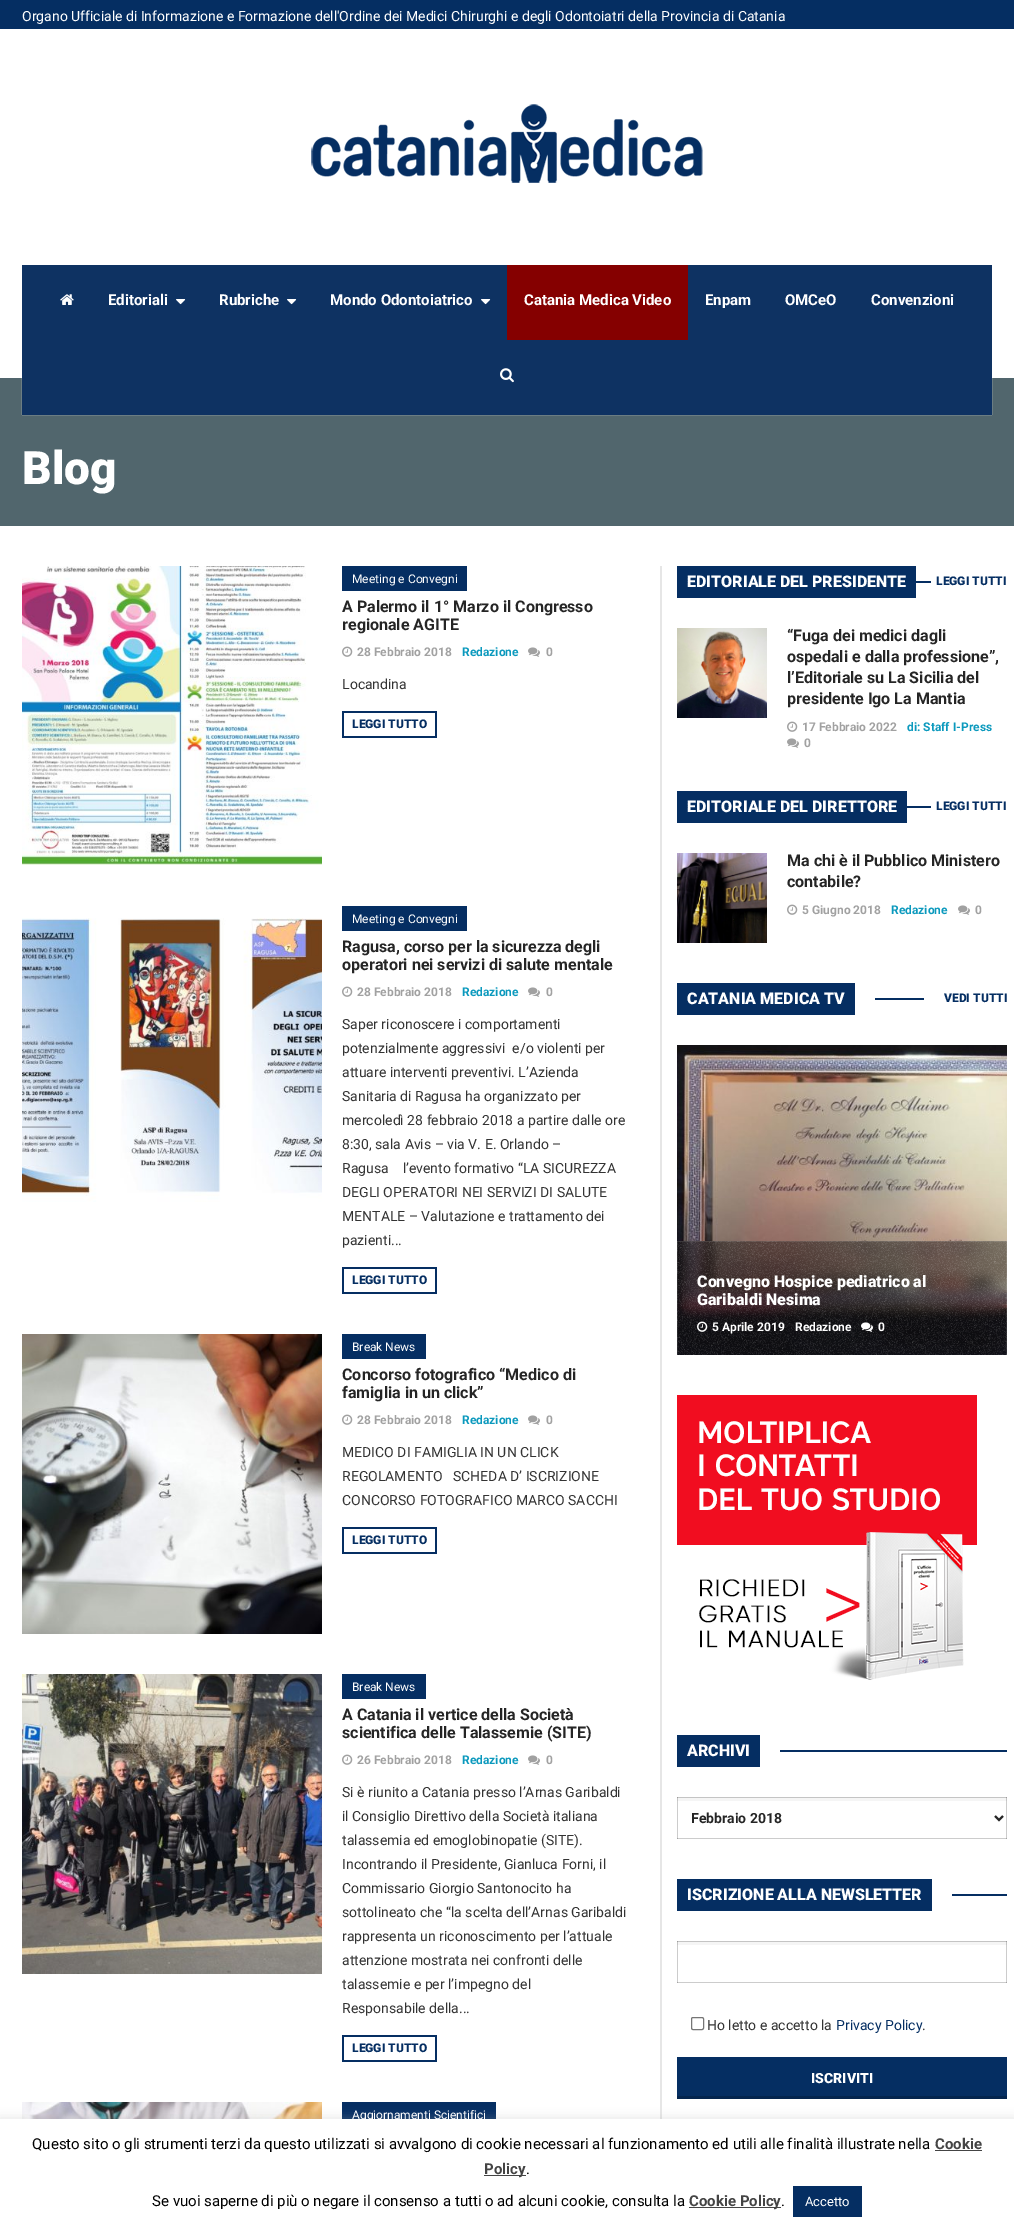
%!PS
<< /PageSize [1014 2229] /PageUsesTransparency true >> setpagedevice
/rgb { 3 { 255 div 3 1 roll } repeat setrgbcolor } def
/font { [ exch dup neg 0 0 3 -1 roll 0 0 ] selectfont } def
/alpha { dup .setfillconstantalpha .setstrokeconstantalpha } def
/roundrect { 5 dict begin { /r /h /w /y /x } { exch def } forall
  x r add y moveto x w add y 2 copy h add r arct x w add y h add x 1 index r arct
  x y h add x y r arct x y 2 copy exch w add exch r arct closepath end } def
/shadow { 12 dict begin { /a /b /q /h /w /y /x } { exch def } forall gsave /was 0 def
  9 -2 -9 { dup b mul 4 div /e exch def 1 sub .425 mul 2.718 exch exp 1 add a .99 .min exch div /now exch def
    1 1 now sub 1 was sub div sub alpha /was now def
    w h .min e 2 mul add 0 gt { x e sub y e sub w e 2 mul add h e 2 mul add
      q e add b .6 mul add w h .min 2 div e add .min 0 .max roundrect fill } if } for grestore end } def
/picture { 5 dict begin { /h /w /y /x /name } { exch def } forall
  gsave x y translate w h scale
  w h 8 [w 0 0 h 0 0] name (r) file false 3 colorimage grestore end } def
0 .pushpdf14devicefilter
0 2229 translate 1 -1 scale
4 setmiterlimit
255 255 255 rgb
0 0 1014 2229 rectfill
[
  [677 1982 330 1 204 204 204]
  [677 1941 1 42 204 204 204]
  [677 1982 1 1 163 163 163]
  [1006 1941 1 42 204 204 204]
  [1006 1982 1 1 163 163 163]
  [677 1838 330 1 204 204 204]
  [677 1797 1 42 204 204 204]
  [677 1838 1 1 163 163 163]
  [1006 1797 1 42 204 204 204]
  [1006 1838 1 1 163 163 163]
  [0 0 1014 29 5 46 98]
] { aload pop rgb rectfill } forall
(img/1.rgb) 311 104 392 79 picture
[
  [0 378 1014 148 81 102 109]
  [22 415 970 1 107 125 131]
  [22 265 970 150 14 50 98]
] { aload pop rgb rectfill } forall
(img/2.rgb) 60 294 14 11 picture
(img/3.rgb) 176 299 10 6 picture
(img/3.rgb) 287 299 10 6 picture
(img/3.rgb) 481 299 10 6 picture
133 0 0 rgb
507 265 181 75 rectfill
(img/4.rgb) 500 368 14 15 picture
107 125 131 rgb
992 378 1 37 rectfill
21 378 1 37 rectfill
(img/5.rgb) 22 566 300 299 picture
5 46 98 rgb
342 566 125 25 rectfill
(img/6.rgb) 342 646 11 11 picture
(img/7.rgb) 528 647 12 10 picture
[
  [435 711 2 27 5 46 98]
  [342 711 2 27 5 46 98]
  [342 736 95 2 5 46 98]
  [342 711 95 2 5 46 98]
] { aload pop rgb rectfill } forall
(img/8.rgb) 22 918 300 284 picture
342 906 125 25 rectfill
(img/6.rgb) 342 986 11 11 picture
(img/7.rgb) 528 987 12 10 picture
[
  [435 1267 2 27 5 46 98]
  [342 1267 2 27 5 46 98]
  [342 1292 95 2 5 46 98]
  [342 1267 95 2 5 46 98]
] { aload pop rgb rectfill } forall
(img/9.rgb) 22 1334 300 300 picture
342 1334 84 25 rectfill
(img/6.rgb) 342 1414 11 11 picture
(img/7.rgb) 528 1415 12 10 picture
[
  [435 1527 2 27 5 46 98]
  [342 1527 2 27 5 46 98]
  [342 1552 95 2 5 46 98]
  [342 1527 95 2 5 46 98]
] { aload pop rgb rectfill } forall
(img/10.rgb) 22 1674 300 300 picture
342 1674 84 25 rectfill
(img/6.rgb) 342 1754 11 11 picture
(img/7.rgb) 528 1755 12 10 picture
[
  [435 2035 2 27 5 46 98]
  [342 2035 2 27 5 46 98]
  [342 2060 95 2 5 46 98]
  [342 2035 95 2 5 46 98]
] { aload pop rgb rectfill } forall
(img/11.rgb) 22 2102 300 17 picture
[
  [342 2102 154 17 5 46 98]
  [660 566 2 1553 230 230 230]
  [677 566 239 32 5 46 98]
  [916 581 15 2 5 46 98]
] { aload pop rgb rectfill } forall
(img/12.rgb) 677 628 90 90 picture
(img/6.rgb) 787 721 11 11 picture
(img/7.rgb) 787 738 12 10 picture
677 791 230 32 rectfill
907 806 24 2 rectfill
(img/13.rgb) 677 853 90 90 picture
(img/6.rgb) 787 904 11 11 picture
(img/7.rgb) 958 905 12 10 picture
677 983 178 32 rectfill
875 998 49 2 rectfill
(img/14.rgb) 677 1045 330 310 picture
(img/15.rgb) 677 1241 330 114 picture
0.4 alpha
0 0 0 rgb
677 1241 330 114 rectfill
1 alpha
(img/16.rgb) 677 1241 330 114 picture
0.1 alpha
[
  [1006 1241 1 114 255 255 255]
  [677 1241 1 114 255 255 255]
  [677 1241 330 1 255 255 255]
] { aload pop rgb rectfill } forall
1 alpha
(img/17.rgb) 697 1321 11 11 picture
(img/18.rgb) 861 1322 12 10 picture
(img/19.rgb) 677 1395 300 285 picture
[
  [677 1735 83 32 5 46 98]
  [780 1750 227 2 5 46 98]
  [677 1798 330 3 245 245 245]
  [677 1797 330 1 196 196 196]
  [677 1797 1 4 196 196 196]
  [677 1797 1 1 157 157 157]
  [1006 1797 1 4 196 196 196]
  [1006 1797 1 1 157 157 157]
] { aload pop rgb rectfill } forall
37 37 37 rgb
2 setlinewidth
995 1816 moveto 999 1820 lineto 1003 1816 lineto stroke
[
  [677 1879 255 32 5 46 98]
  [952 1894 55 2 5 46 98]
  [677 1942 330 3 245 245 245]
  [677 1941 330 1 196 196 196]
  [677 1941 1 4 196 196 196]
  [677 1941 1 1 157 157 157]
  [1006 1941 1 4 196 196 196]
  [1006 1941 1 1 157 157 157]
] { aload pop rgb rectfill } forall
118 118 118 rgb
1 setlinewidth
691.5 2017.5 12 12 1.5 roundrect stroke
5 46 98 rgb
677 2057 330 39 rectfill
4 37 78 rgb
677 2096 330 3 rectfill
172 171 171 rgb
0 2118 1014 110 0 5 0.3 shadow
[
  [0 2119 1014 110 255 255 255]
  [935 2150 47 1 68 68 68]
  [484 2175 42 1 68 68 68]
  [689 2207 92 1 68 68 68]
  [793 2186 69 31 5 46 98]
] { aload pop rgb rectfill } forall
/Roboto-Regular 14 font
255 255 255 rgb
22 21 moveto (Organo Ufficiale di Informazione e Formazione dell'Ordine dei Medici Chirurghi e degli Odontoiatri della Provincia di Catania) show
/Roboto-Bold 15 font
[
  [(Editoriali) 108 305]
  [(Rubriche) 219 305]
  [(Mondo Odontoiatrico) 330 305]
  [(Catania Medica Video) 524 305]
  [(Enpam) 705 305]
  [(OMCeO) 785 305]
  [(Convenzioni) 871 305]
] { aload pop moveto show } forall
/Roboto-Black 46 font
22 484 moveto (Blog) show
/Roboto-Regular 12 font
352 583 moveto (Meeting e Convegni) show
/Roboto-Bold 16 font
37 37 37 rgb
342 612 moveto (A Palermo il 1° Marzo il Congresso) show
342 630 moveto (regionale AGITE) show
/Roboto-Bold 12 font
161 161 161 rgb
357 656 moveto (28 Febbraio 2018) show
11 153 189 rgb
462 656 moveto (Redazione) show
161 161 161 rgb
546 656 moveto (0) show
/Roboto-Regular 14 font
51 51 51 rgb
342 689 moveto (Locandina) show
/Roboto-Black 12 font
5 46 98 rgb
352 728 moveto (LEGGI TUTTO) show
/Roboto-Regular 12 font
255 255 255 rgb
352 923 moveto (Meeting e Convegni) show
/Roboto-Bold 16 font
37 37 37 rgb
342 952 moveto (Ragusa, corso per la sicurezza degli) show
342 970 moveto (operatori nei servizi di salute mentale) show
/Roboto-Bold 12 font
161 161 161 rgb
357 996 moveto (28 Febbraio 2018) show
11 153 189 rgb
462 996 moveto (Redazione) show
161 161 161 rgb
546 996 moveto (0) show
/Roboto-Regular 14 font
51 51 51 rgb
[
  [(Saper riconoscere i comportamenti) 342 1029]
  [(potenzialmente aggressivi  e/o violenti per) 342 1053]
  [(attuare interventi preventivi. L’Azienda) 342 1077]
  [(Sanitaria di Ragusa ha organizzato per) 342 1101]
  [(mercoledì 28 febbraio 2018 a partire dalle ore) 342 1125]
  [(8:30, sala Avis – via V. E. Orlando –) 342 1149]
  [(Ragusa    l’evento formativo “LA SICUREZZA) 342 1173]
  [(DEGLI OPERATORI NEI SERVIZI DI SALUTE) 342 1197]
  [(MENTALE – Valutazione e trattamento dei) 342 1221]
  [(pazienti...) 342 1245]
] { aload pop moveto show } forall
/Roboto-Black 12 font
5 46 98 rgb
352 1284 moveto (LEGGI TUTTO) show
/Roboto-Regular 12 font
255 255 255 rgb
352 1351 moveto (Break News) show
/Roboto-Bold 16 font
37 37 37 rgb
342 1380 moveto (Concorso fotografico “Medico di) show
342 1398 moveto (famiglia in un click”) show
/Roboto-Bold 12 font
161 161 161 rgb
357 1424 moveto (28 Febbraio 2018) show
11 153 189 rgb
462 1424 moveto (Redazione) show
161 161 161 rgb
546 1424 moveto (0) show
/Roboto-Regular 14 font
51 51 51 rgb
[
  [(MEDICO DI FAMIGLIA IN UN CLICK) 342 1457]
  [(REGOLAMENTO   SCHEDA D’ ISCRIZIONE) 342 1481]
  [(CONCORSO FOTOGRAFICO MARCO SACCHI) 342 1505]
] { aload pop moveto show } forall
/Roboto-Black 12 font
5 46 98 rgb
352 1544 moveto (LEGGI TUTTO) show
/Roboto-Regular 12 font
255 255 255 rgb
352 1691 moveto (Break News) show
/Roboto-Bold 16 font
37 37 37 rgb
342 1720 moveto (A Catania il vertice della Società) show
342 1738 moveto (scientifica delle Talassemie \(SITE\)) show
/Roboto-Bold 12 font
161 161 161 rgb
357 1764 moveto (26 Febbraio 2018) show
11 153 189 rgb
462 1764 moveto (Redazione) show
161 161 161 rgb
546 1764 moveto (0) show
/Roboto-Regular 14 font
51 51 51 rgb
[
  [(Si è riunito a Catania presso l’Arnas Garibaldi) 342 1797]
  [(il Consiglio Direttivo della Società italiana) 342 1821]
  [(talassemia ed emoglobinopatie \(SITE\).) 342 1845]
  [(Incontrando il Presidente, Gianluca Forni, il) 342 1869]
  [(Commissario Giorgio Santonocito ha) 342 1893]
  [(sottolineato che “la scelta dell’Arnas Garibaldi) 342 1917]
  [(rappresenta un riconoscimento per l’attuale) 342 1941]
  [(attenzione mostrata nei confronti delle) 342 1965]
  [(talassemie e per l’impegno del) 342 1989]
  [(Responsabile della...) 342 2013]
] { aload pop moveto show } forall
/Roboto-Black 12 font
5 46 98 rgb
352 2052 moveto (LEGGI TUTTO) show
/Roboto-Regular 12 font
255 255 255 rgb
352 2119 moveto (Aggiornamenti Scientifici) show
/Roboto-Black 16 font
687 587 moveto (EDITORIALE DEL PRESIDENTE) show
/Roboto-Black 12 font
5 46 98 rgb
936 585 moveto (LEGGI TUTTI) show
/Roboto-Bold 16 font
37 37 37 rgb
[
  [(“Fuga dei medici dagli) 787 641]
  [(ospedali e dalla professione”,) 787 662]
  [(l’Editoriale su La Sicilia del) 787 683]
  [(presidente Igo La Mantia) 787 704]
] { aload pop moveto show } forall
/Roboto-Bold 12 font
161 161 161 rgb
802 731 moveto (17 Febbraio 2022) show
11 153 189 rgb
907 731 moveto (di: Staff I-Press) show
161 161 161 rgb
804 747 moveto (0) show
/Roboto-Black 16 font
255 255 255 rgb
687 812 moveto (EDITORIALE DEL DIRETTORE) show
/Roboto-Black 12 font
5 46 98 rgb
936 810 moveto (LEGGI TUTTI) show
/Roboto-Bold 16 font
37 37 37 rgb
787 866 moveto (Ma chi è il Pubblico Ministero) show
787 887 moveto (contabile?) show
/Roboto-Bold 12 font
161 161 161 rgb
802 914 moveto (5 Giugno 2018) show
11 153 189 rgb
891 914 moveto (Redazione) show
161 161 161 rgb
975 914 moveto (0) show
/Roboto-Black 16 font
255 255 255 rgb
687 1004 moveto (CATANIA MEDICA TV) show
/Roboto-Black 12 font
5 46 98 rgb
944 1002 moveto (VEDI TUTTI) show
/Roboto-Black 16 font
255 255 255 rgb
697 1287 moveto (Convegno Hospice pediatrico al) show
697 1305 moveto (Garibaldi Nesima) show
/Roboto-Bold 12 font
[
  [(5 Aprile 2019) 712 1331]
  [(Redazione) 795 1331]
  [(0) 878 1331]
] { aload pop moveto show } forall
/Roboto-Black 16 font
687 1756 moveto (ARCHIVI) show
/Roboto-Bold 14 font
37 37 37 rgb
691 1823 moveto (Febbraio 2018) show
/Roboto-Black 16 font
255 255 255 rgb
687 1900 moveto (ISCRIZIONE ALLA NEWSLETTER) show
/Roboto-Regular 14 font
51 51 51 rgb
707 2030 moveto (Ho letto e accetto la) show
5 46 98 rgb
836 2030 moveto (Privacy Policy) show
51 51 51 rgb
922 2030 moveto (.) show
/Roboto-Black 14 font
255 255 255 rgb
811 2083 moveto (ISCRIVITI) show
/Roboto-Regular 15 font
0 0 0 rgb
32 2149 moveto (Questo sito o gli strumenti terzi da questo utilizzati si avvalgono di cookie necessari al funzionamento ed utili alle finalità illustrate nella) show
/Roboto-Bold 15 font
68 68 68 rgb
935 2149 moveto (Cookie) show
484 2174 moveto (Policy) show
/Roboto-Regular 15 font
0 0 0 rgb
526 2174 moveto (.) show
152 2206 moveto (Se vuoi saperne di più o negare il consenso a tutti o ad alcuni cookie, consulta la) show
/Roboto-Bold 15 font
68 68 68 rgb
689 2206 moveto (Cookie Policy) show
/Roboto-Regular 15 font
0 0 0 rgb
781 2206 moveto (.) show
/Roboto-Regular 13 font
255 255 255 rgb
805 2206 moveto (Accetto) show
.poppdf14devicefilter showpage
